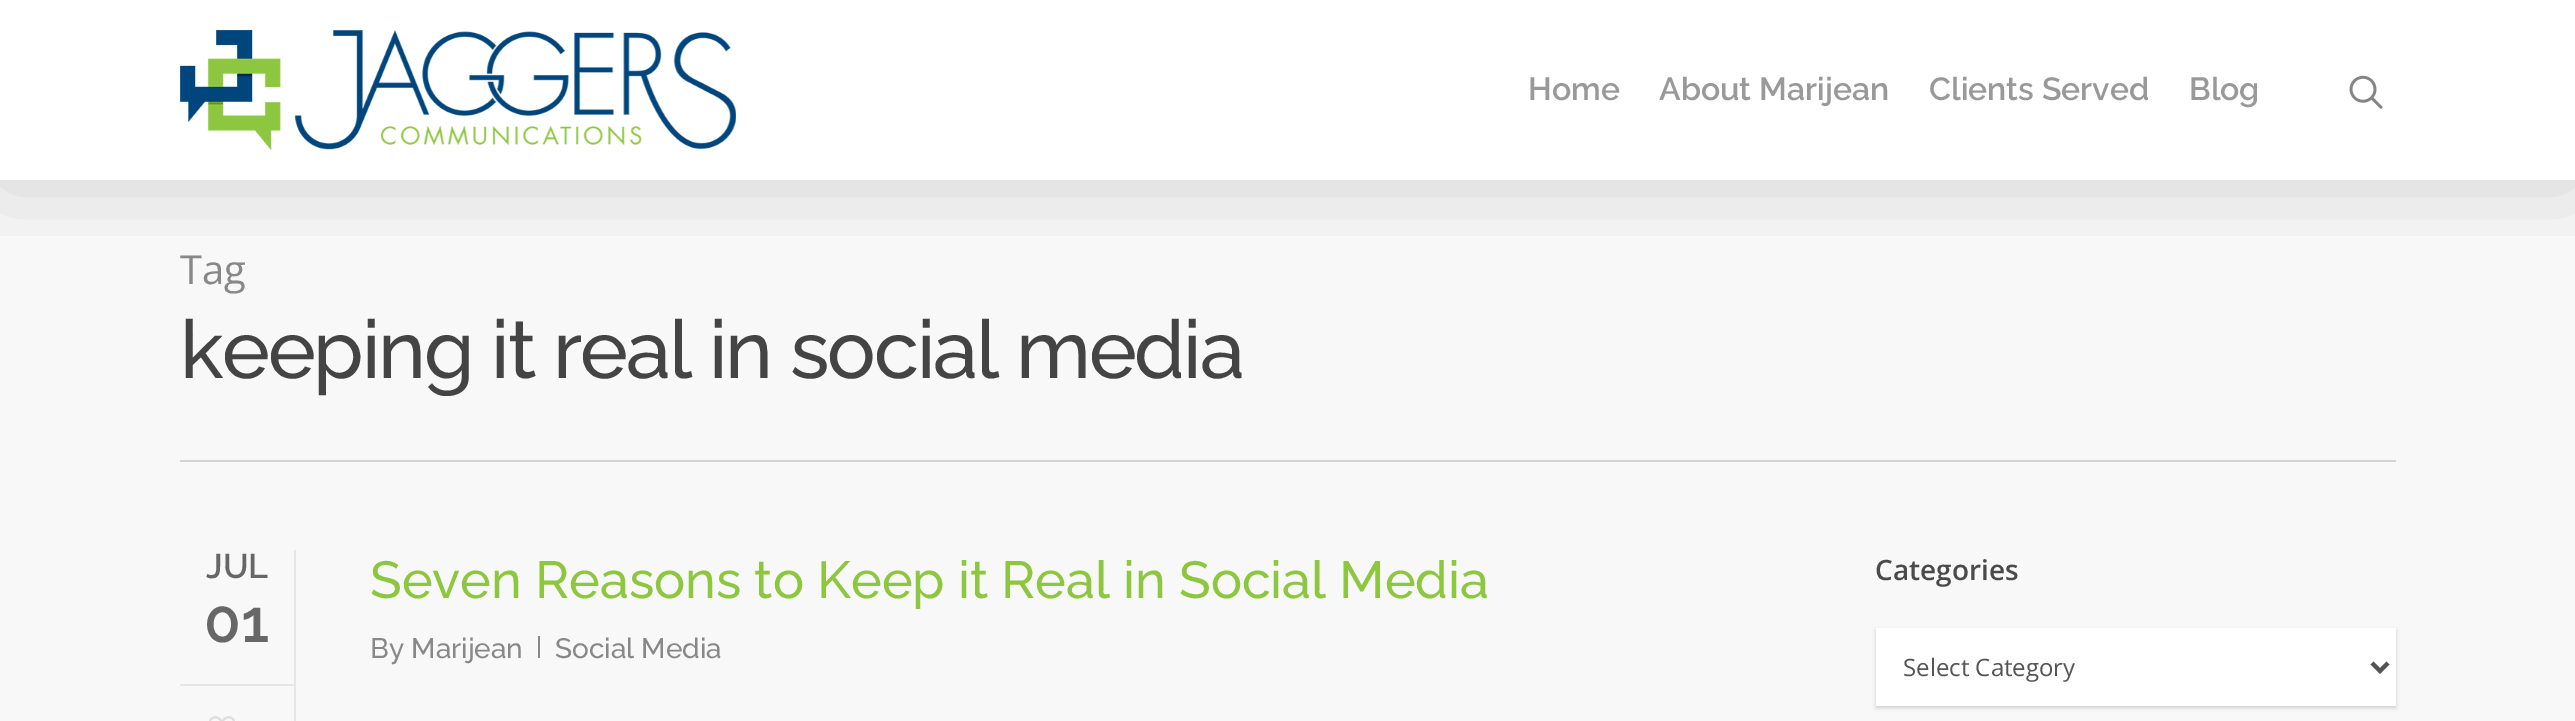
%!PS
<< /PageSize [2575 721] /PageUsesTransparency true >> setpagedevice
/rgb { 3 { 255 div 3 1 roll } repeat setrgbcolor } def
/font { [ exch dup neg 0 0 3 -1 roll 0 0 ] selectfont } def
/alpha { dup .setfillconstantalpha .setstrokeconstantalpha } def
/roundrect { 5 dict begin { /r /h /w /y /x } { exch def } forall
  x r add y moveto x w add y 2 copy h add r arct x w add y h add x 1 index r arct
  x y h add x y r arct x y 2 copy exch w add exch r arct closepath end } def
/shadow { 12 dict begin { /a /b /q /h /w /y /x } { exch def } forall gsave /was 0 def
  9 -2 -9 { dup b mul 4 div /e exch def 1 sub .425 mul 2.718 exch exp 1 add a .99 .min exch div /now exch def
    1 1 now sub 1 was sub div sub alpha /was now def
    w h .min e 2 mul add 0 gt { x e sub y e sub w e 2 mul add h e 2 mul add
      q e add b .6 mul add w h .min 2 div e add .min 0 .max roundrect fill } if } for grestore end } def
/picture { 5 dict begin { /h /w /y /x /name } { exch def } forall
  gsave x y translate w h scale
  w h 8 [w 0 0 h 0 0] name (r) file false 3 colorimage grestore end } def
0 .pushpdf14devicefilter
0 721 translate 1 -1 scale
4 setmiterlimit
255 255 255 rgb
0 0 2575 721 rectfill
248 248 248 rgb
0 180 2575 541 rectfill
gsave
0 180 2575 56 rectclip
0 0 0 rgb
0 6 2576 180 0 45 0.15 shadow
grestore
(img/1.rgb) 180 30 556 120 picture
(img/2.rgb) 2349 75 34 34 picture
[
  [180 460 2216 2 211 211 211]
  [294 550 2 171 230 230 230]
  [180 684 114 2 230 230 230]
] { aload pop rgb rectfill } forall
(img/3.rgb) 209 716 26 5 picture
136 136 136 rgb
538 636 2 22 rectfill
0 0 0 rgb
1876 630 520 78 0 2 0.16 shadow
255 255 255 rgb
1876 628 520 78 rectfill
85 85 85 rgb
4 setlinewidth
2372 663 moveto 2380 671 lineto 2388 663 lineto stroke
/Raleway-SemiBold 32 font
153 153 153 rgb
[
  [(Home) 1528 100]
  [(About Marijean) 1659 100]
  [(Clients Served) 1929 100]
  [(Blog) 2189 100]
] { aload pop moveto show } forall
/OpenSans-Regular 40 font
136 136 136 rgb
180 284 moveto (Tag) show
/Raleway-Medium 81 font
68 68 68 rgb
180 378 moveto -2 0 (keeping it real in social media) ashow
/Raleway-SemiBold 34 font
103 103 103 rgb
206 578 moveto (JUL) show
/Raleway-SemiBold 60 font
204 642 moveto (01) show
/Raleway-Medium 52 font
141 198 63 rgb
370 598 moveto (Seven Reasons to Keep it Real in Social Media) show
/Raleway-Medium 28 font
136 136 136 rgb
370 658 moveto (By Marijean) show
555 658 moveto (Social Media) show
/OpenSans-SemiBold 28 font
74 74 74 rgb
1875 580 moveto (Categories) show
/OpenSans-Regular 24 font
85 85 85 rgb
1903 676 moveto (Select Category) show
.poppdf14devicefilter showpage
